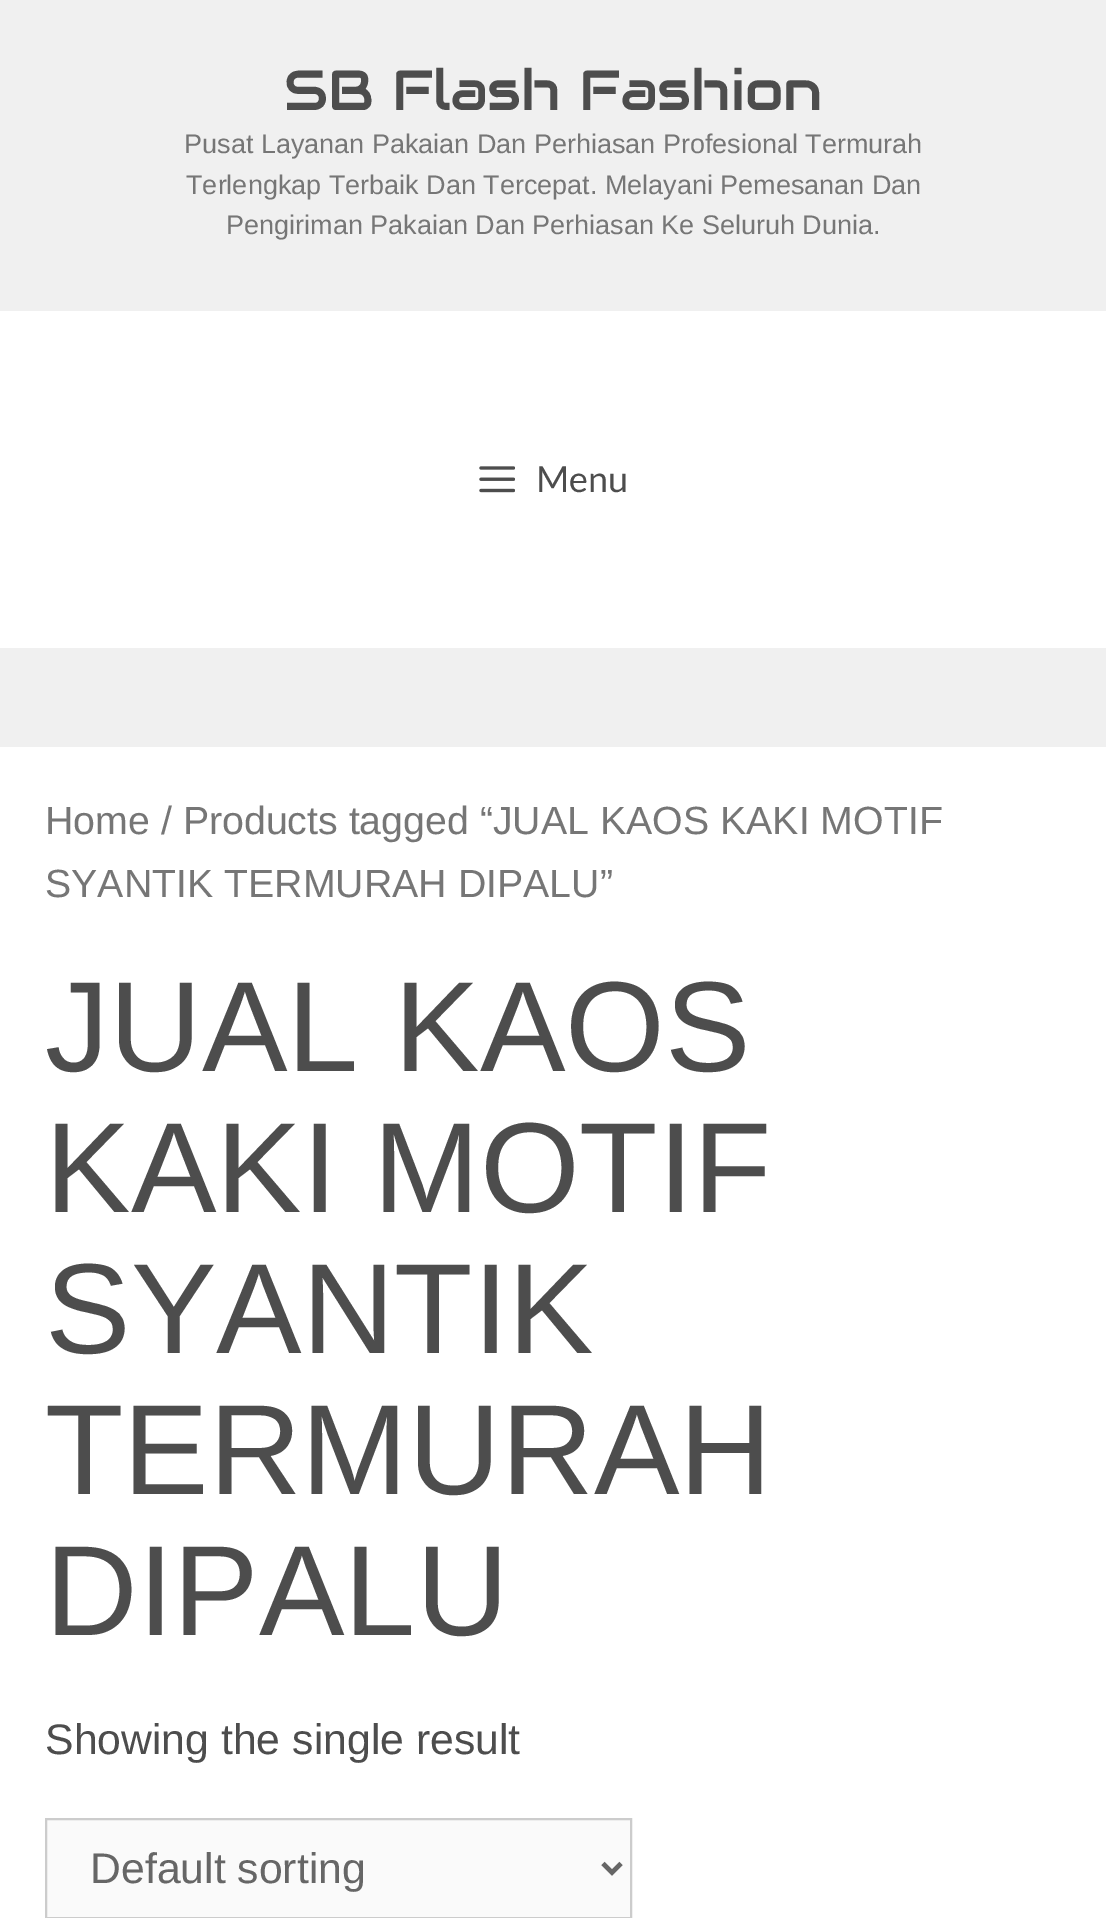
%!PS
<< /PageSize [1106 1918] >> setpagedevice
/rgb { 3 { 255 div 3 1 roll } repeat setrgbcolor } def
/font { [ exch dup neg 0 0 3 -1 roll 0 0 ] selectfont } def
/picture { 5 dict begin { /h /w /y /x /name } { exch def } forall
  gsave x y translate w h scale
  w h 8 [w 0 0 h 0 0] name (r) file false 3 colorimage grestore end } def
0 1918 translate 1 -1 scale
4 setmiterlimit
240 240 240 rgb
0 0 1106 1918 rectfill
255 255 255 rgb
0 311 1106 337 rectfill
(img/1.rgb) 479 466 36 27 picture
0 747 1106 1171 rectfill
250 250 250 rgb
46 1819 moveto 631 1819 lineto 631 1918 lineto 46 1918 lineto closepath gsave fill grestore
204 204 204 rgb
2 setlinewidth
stroke
102 102 102 rgb
4.5 setlinewidth
603 1863.5 moveto 612 1872.5 lineto 621 1863.5 lineto stroke
/Audiowide-Regular 56.25 font
77 77 77 rgb
284 110 moveto (SB Flash Fashion) show
/LiberationSans-Regular 27 font
118 118 118 rgb
[
  [(Pusat Layanan Pakaian Dan Perhiasan Profesional Termurah) 184 153]
  [(Terlengkap Terbaik Dan Tercepat. Melayani Pemesanan Dan) 186 194]
  [(Pengiriman Pakaian Dan Perhiasan Ke Seluruh Dunia.) 226 234]
] { aload pop moveto show } forall
/Lato-Regular 36 font
77 77 77 rgb
536 492 moveto (Menu) show
/LiberationSans-Regular 39.3 font
118 118 118 rgb
45 834 moveto (Home / Products tagged “JUAL KAOS KAKI MOTIF) show
45 897 moveto (SYANTIK TERMURAH DIPALU”) show
/LiberationSans-Regular 128.25 font
77 77 77 rgb
[
  [(JUAL KAOS) 45 1071]
  [(KAKI MOTIF) 45 1212]
  [(SYANTIK) 45 1353]
  [(TERMURAH) 45 1494]
  [(DIPALU) 45 1635]
] { aload pop moveto show } forall
/LiberationSans-Regular 42.75 font
45 1754 moveto (Showing the single result) show
102 102 102 rgb
90 1883 moveto (Default sorting) show
showpage
